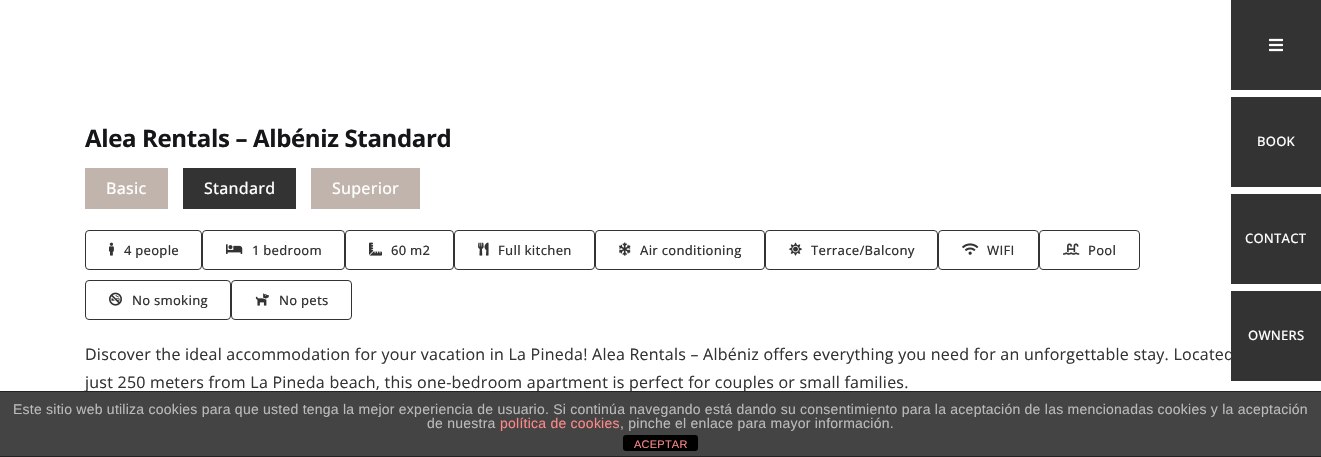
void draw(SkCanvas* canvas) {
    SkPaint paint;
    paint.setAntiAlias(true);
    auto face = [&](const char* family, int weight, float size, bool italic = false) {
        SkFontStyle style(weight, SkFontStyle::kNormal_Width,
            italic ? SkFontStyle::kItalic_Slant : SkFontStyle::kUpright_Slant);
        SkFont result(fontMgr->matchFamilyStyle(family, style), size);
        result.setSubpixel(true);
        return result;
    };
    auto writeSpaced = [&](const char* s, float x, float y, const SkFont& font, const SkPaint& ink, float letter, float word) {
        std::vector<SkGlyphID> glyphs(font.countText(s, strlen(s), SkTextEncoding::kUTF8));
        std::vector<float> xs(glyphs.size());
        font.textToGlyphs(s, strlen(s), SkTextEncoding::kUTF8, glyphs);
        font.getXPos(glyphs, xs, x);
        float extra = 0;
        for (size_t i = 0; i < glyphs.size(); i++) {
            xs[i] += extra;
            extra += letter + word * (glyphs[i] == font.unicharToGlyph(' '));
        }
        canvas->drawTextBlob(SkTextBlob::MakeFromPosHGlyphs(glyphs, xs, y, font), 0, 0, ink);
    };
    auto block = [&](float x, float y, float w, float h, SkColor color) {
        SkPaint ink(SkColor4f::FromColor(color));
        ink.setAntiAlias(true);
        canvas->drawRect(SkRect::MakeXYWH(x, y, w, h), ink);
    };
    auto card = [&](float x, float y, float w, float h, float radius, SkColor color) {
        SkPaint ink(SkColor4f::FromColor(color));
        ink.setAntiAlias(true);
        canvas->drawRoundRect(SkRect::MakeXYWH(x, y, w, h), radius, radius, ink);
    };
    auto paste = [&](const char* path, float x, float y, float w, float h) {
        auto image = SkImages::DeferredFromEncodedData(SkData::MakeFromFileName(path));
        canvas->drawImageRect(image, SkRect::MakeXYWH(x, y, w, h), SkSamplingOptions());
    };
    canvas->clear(SK_ColorWHITE);
    auto kFont1 = face("Open Sans", 700, 24);
    paint.setColor(SkColorSetRGB(20, 22, 23));
    writeSpaced("Alea Rentals – Albéniz Standard", 85, 147, kFont1, paint, -0.35f, 0);
    block(85, 168, 83, 41, SkColorSetRGB(192, 180, 172));
    auto kFont2 = face("Open Sans", 500, 16);
    paint.setColor(SK_ColorWHITE);
    writeSpaced("Basic", 106, 194, kFont2, paint, 0.24f, 0);
    block(183, 168, 113, 41, SkColorSetRGB(51, 51, 51));
    writeSpaced("Standard", 204, 194, kFont2, paint, 0.24f, 0);
    block(311, 168, 109, 41, SkColorSetRGB(192, 180, 172));
    writeSpaced("Superior", 332, 194, kFont2, paint, 0.24f, 0);
    paint.setStyle(SkPaint::kStroke_Style);
    paint.setStrokeWidth(1);
    paint.setColor(SkColorSetRGB(51, 51, 51));
    canvas->drawRoundRect(SkRect::MakeXYWH(85.5f, 230.5f, 116, 39), 3.5f, 3.5f, paint);
    paste("pic1.png", 109, 242, 5, 14);
    auto kFont3 = face("Open Sans", 500, 13);
    paint.setStyle(SkPaint::kFill_Style);
    writeSpaced("4 people", 124, 255, kFont3, paint, 0.25f, 0);
    paint.setStyle(SkPaint::kStroke_Style);
    canvas->drawRoundRect(SkRect::MakeXYWH(202.5f, 230.5f, 142, 39), 3.5f, 3.5f, paint);
    paste("pic2.png", 226, 244, 17, 10);
    paint.setStyle(SkPaint::kFill_Style);
    writeSpaced("1 bedroom", 252, 255, kFont3, paint, 0.25f, 0);
    paint.setStyle(SkPaint::kStroke_Style);
    canvas->drawRoundRect(SkRect::MakeXYWH(345.5f, 230.5f, 108, 39), 3.5f, 3.5f, paint);
    paste("pic3.png", 369, 242, 13, 14);
    paint.setStyle(SkPaint::kFill_Style);
    writeSpaced("60 m2", 391, 255, kFont3, paint, 0.25f, 0);
    paint.setStyle(SkPaint::kStroke_Style);
    canvas->drawRoundRect(SkRect::MakeXYWH(454.5f, 230.5f, 140, 39), 3.5f, 3.5f, paint);
    paste("pic4.png", 478, 242, 11, 14);
    paint.setStyle(SkPaint::kFill_Style);
    writeSpaced("Full kitchen", 498, 255, kFont3, paint, 0.25f, 0);
    paint.setStyle(SkPaint::kStroke_Style);
    canvas->drawRoundRect(SkRect::MakeXYWH(595.5f, 230.5f, 169, 39), 3.5f, 3.5f, paint);
    paste("pic5.png", 619, 242, 12, 14);
    paint.setStyle(SkPaint::kFill_Style);
    writeSpaced("Air conditioning", 640, 255, kFont3, paint, 0.25f, 0);
    paint.setStyle(SkPaint::kStroke_Style);
    canvas->drawRoundRect(SkRect::MakeXYWH(765.5f, 230.5f, 172, 39), 3.5f, 3.5f, paint);
    paste("pic6.png", 789, 242, 13, 14);
    paint.setStyle(SkPaint::kFill_Style);
    writeSpaced("Terrace/Balcony", 811, 255, kFont3, paint, 0.25f, 0);
    paint.setStyle(SkPaint::kStroke_Style);
    canvas->drawRoundRect(SkRect::MakeXYWH(938.5f, 230.5f, 100, 39), 3.5f, 3.5f, paint);
    paste("pic7.png", 962, 243, 17, 12);
    paint.setStyle(SkPaint::kFill_Style);
    writeSpaced("WIFI", 987, 255, kFont3, paint, 0.25f, 0);
    paint.setStyle(SkPaint::kStroke_Style);
    canvas->drawRoundRect(SkRect::MakeXYWH(1039.5f, 230.5f, 100, 39), 3.5f, 3.5f, paint);
    paste("pic8.png", 1063, 243, 17, 12);
    paint.setStyle(SkPaint::kFill_Style);
    writeSpaced("Pool", 1088, 255, kFont3, paint, 0.25f, 0);
    paint.setStyle(SkPaint::kStroke_Style);
    canvas->drawRoundRect(SkRect::MakeXYWH(85.5f, 280.5f, 145, 39), 3.5f, 3.5f, paint);
    paste("pic9.png", 109, 292, 13, 14);
    paint.setStyle(SkPaint::kFill_Style);
    writeSpaced("No smoking", 132, 305, kFont3, paint, 0.25f, 0);
    paint.setStyle(SkPaint::kStroke_Style);
    canvas->drawRoundRect(SkRect::MakeXYWH(231.5f, 280.5f, 120, 39), 3.5f, 3.5f, paint);
    paste("pic10.png", 255, 293, 14, 13);
    paint.setStyle(SkPaint::kFill_Style);
    writeSpaced("No pets", 279, 305, kFont3, paint, 0.25f, 0);
    auto kFont4 = face("Open Sans", 400, 16);
    writeSpaced("Discover the ideal accommodation for your vacation in La Pineda! Alea Rentals – Albéniz offers everything you need for an unforgettable stay. Located", 85, 360, kFont4, paint, 0.24f, 0);
    writeSpaced("just 250 meters from La Pineda beach, this one-bedroom apartment is perfect for couples or small families.", 85, 388, kFont4, paint, 0.24f, 0);
    block(1231, 0, 90, 90, SkColorSetRGB(51, 51, 51));
    paste("pic11.png", 1269, 38, 14, 14);
    block(1231, 97, 90, 90, SkColorSetRGB(51, 51, 51));
    paint.setColor(SK_ColorWHITE);
    writeSpaced("BOOK", 1257, 146, kFont3, paint, 0.24f, 0);
    block(1231, 194, 90, 90, SkColorSetRGB(51, 51, 51));
    writeSpaced("CONTACT", 1245, 243, kFont3, paint, 0.24f, 0);
    block(1231, 291, 90, 90, SkColorSetRGB(51, 51, 51));
    writeSpaced("OWNERS", 1248, 340, kFont3, paint, 0.24f, 0);
    block(0, 392, 1321, 64, SkColorSetRGB(68, 68, 68));
    block(0, 391, 1321, 1, SkColorSetRGB(34, 34, 34));
    block(0, 456, 1321, 1, SkColorSetRGB(34, 34, 34));
    auto kFont5 = face("Liberation Sans", 400, 14);
    paint.setColor(SkColorSetRGB(187, 187, 187));
    writeSpaced("Este sitio web utiliza cookies para que usted tenga la mejor experiencia de usuario. Si continúa navegando está dando su consentimiento para la aceptación de las mencionadas cookies y la aceptación", 13, 414, kFont5, paint, 0.24f, 0);
    writeSpaced("de nuestra", 427, 428, kFont5, paint, 0.24f, 0);
    paint.setColor(SkColorSetRGB(255, 136, 136));
    writeSpaced("política de cookies", 500, 428, kFont5, paint, 0.24f, 0);
    paint.setColor(SkColorSetRGB(187, 187, 187));
    writeSpaced(", pinche el enlace para mayor información.", 620, 428, kFont5, paint, 0.24f, 0);
    card(623, 435, 75, 16, 3, SK_ColorBLACK);
    auto kFont6 = face("Liberation Sans", 400, 11);
    paint.setColor(SkColorSetRGB(255, 136, 136));
    writeSpaced("ACEPTAR", 634, 448, kFont6, paint, 0.24f, 0);
}
